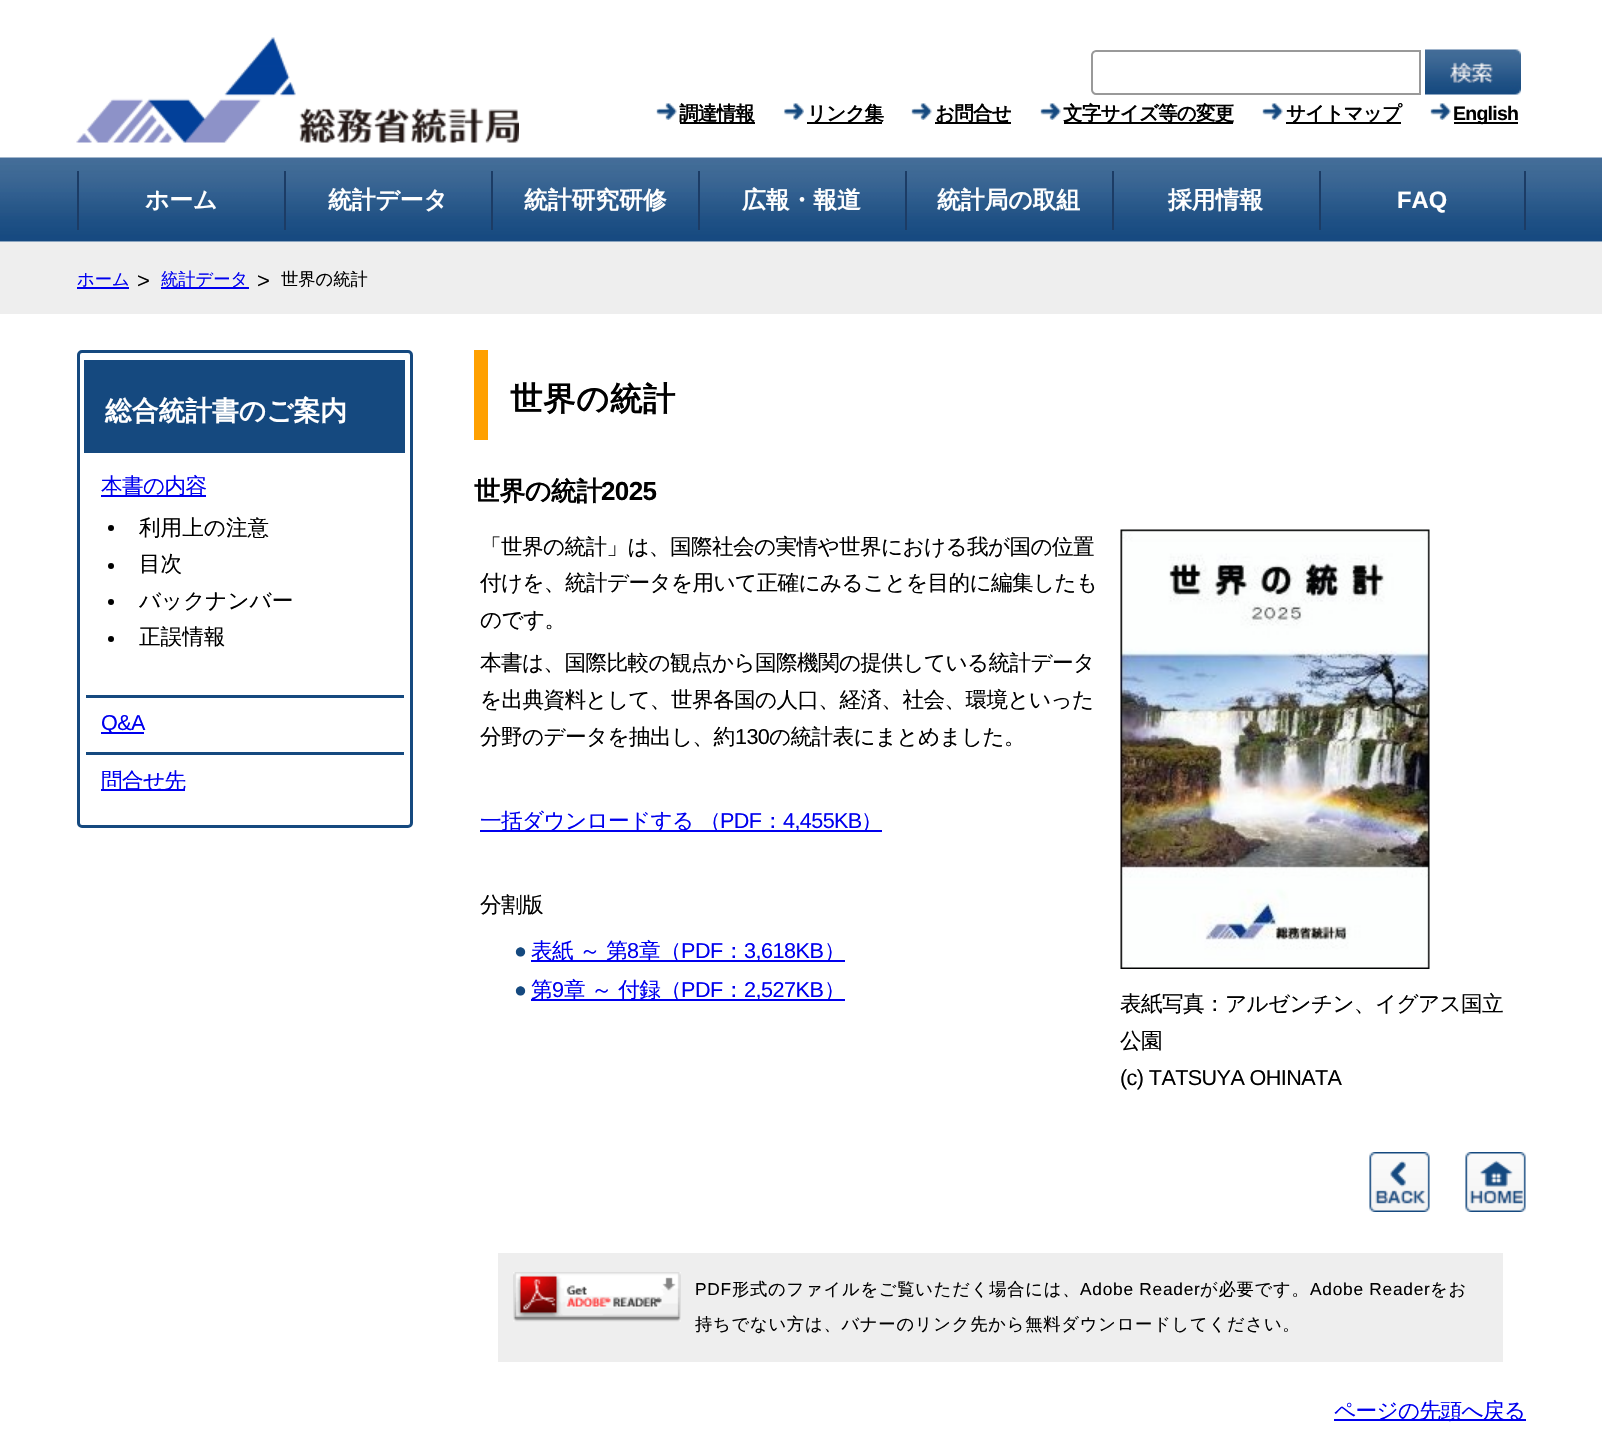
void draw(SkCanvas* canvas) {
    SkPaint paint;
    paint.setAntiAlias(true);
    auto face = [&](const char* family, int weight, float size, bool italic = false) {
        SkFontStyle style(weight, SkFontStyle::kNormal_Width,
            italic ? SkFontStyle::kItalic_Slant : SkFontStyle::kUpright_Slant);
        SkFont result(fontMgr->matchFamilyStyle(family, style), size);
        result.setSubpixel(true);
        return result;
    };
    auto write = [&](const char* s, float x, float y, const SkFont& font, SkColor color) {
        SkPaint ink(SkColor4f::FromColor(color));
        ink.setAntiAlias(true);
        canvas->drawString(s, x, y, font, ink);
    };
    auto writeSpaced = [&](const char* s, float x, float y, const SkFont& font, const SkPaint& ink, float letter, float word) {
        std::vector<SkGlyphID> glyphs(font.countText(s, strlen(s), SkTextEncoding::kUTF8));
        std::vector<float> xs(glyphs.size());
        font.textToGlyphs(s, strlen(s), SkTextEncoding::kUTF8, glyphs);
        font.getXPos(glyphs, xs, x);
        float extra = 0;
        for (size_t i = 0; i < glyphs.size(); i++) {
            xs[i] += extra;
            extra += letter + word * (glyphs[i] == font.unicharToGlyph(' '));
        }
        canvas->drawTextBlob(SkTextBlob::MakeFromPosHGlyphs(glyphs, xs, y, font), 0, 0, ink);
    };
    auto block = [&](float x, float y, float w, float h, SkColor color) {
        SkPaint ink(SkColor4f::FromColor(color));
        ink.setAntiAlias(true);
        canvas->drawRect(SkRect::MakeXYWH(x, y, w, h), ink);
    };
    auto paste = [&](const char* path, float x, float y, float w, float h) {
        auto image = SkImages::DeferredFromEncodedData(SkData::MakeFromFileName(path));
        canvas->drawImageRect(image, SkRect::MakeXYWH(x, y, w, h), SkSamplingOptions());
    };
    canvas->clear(SK_ColorWHITE);
    paste("pic1.png", 76, 37, 443, 106);
    paint.setStyle(SkPaint::kStroke_Style);
    paint.setStrokeWidth(2);
    paint.setColor(SkColorSetRGB(153, 153, 153));
    canvas->drawPath(SkPathBuilder().moveTo(1096, 51).lineTo(1420, 51).lineTo(1420, 94).lineTo(1096, 94).cubicTo(1094, 94, 1092, 92, 1092, 90).lineTo(1092, 55).cubicTo(1092, 53, 1094, 51, 1096, 51).close().detach(), paint);
    paste("pic2.png", 1425, 49, 96, 46);
    paste("pic3.png", 656, 103, 21, 17);
    block(680, 122, 75, 2, SK_ColorBLACK);
    auto kFont1 = face("WenQuanYi Zen Hei", 700, 19.5f);
    paint.setStyle(SkPaint::kFill_Style);
    paint.setColor(SK_ColorBLACK);
    writeSpaced("調達情報", 679, 120, kFont1, paint, -0.75f, 0);
    paste("pic4.png", 783, 103, 21, 17);
    block(807, 122, 75, 2, SK_ColorBLACK);
    writeSpaced("リンク集", 807, 120, kFont1, paint, -0.75f, 0);
    paste("pic5.png", 911, 103, 21, 17);
    block(935, 122, 76, 2, SK_ColorBLACK);
    writeSpaced("お問合せ", 935, 120, kFont1, paint, -0.75f, 0);
    paste("pic5.png", 1040, 103, 21, 17);
    block(1064, 122, 169, 2, SK_ColorBLACK);
    writeSpaced("文字サイズ等の変更", 1063, 120, kFont1, paint, -0.75f, 0);
    paste("pic5.png", 1262, 103, 21, 17);
    block(1286, 122, 115, 2, SK_ColorBLACK);
    writeSpaced("サイトマップ", 1286, 120, kFont1, paint, -0.75f, 0);
    paste("pic3.png", 1430, 103, 21, 17);
    block(1454, 122, 64, 2, SK_ColorBLACK);
    auto kFont2 = face("Liberation Sans", 700, 19.5f);
    writeSpaced("English", 1453, 120, kFont2, paint, -0.75f, 0);
    paste("pic6.png", 0, 157, 1602, 85);
    block(77, 171, 2, 59, SkColorSetRGB(28, 60, 101));
    auto kFont3 = face("WenQuanYi Zen Hei", 700, 23.75f);
    write("ホーム", 145, 208, kFont3, SK_ColorWHITE);
    block(284, 171, 2, 59, SkColorSetRGB(28, 60, 101));
    write("統計データ", 328, 208, kFont3, SK_ColorWHITE);
    block(491, 171, 2, 59, SkColorSetRGB(28, 60, 101));
    write("統計研究研修", 524, 208, kFont3, SK_ColorWHITE);
    block(698, 171, 2, 59, SkColorSetRGB(28, 60, 101));
    write("広報・報道", 742, 208, kFont3, SK_ColorWHITE);
    block(905, 171, 2, 59, SkColorSetRGB(28, 60, 101));
    write("統計局の取組", 937, 208, kFont3, SK_ColorWHITE);
    block(1112, 171, 2, 59, SkColorSetRGB(28, 60, 101));
    write("採用情報", 1168, 208, kFont3, SK_ColorWHITE);
    block(1524, 171, 2, 59, SkColorSetRGB(28, 60, 101));
    block(1319, 171, 2, 59, SkColorSetRGB(28, 60, 101));
    auto kFont4 = face("Liberation Sans", 700, 23.75f);
    write("FAQ", 1397, 208, kFont4, SK_ColorWHITE);
    block(0, 242, 1602, 72, SkColorSetRGB(238, 238, 238));
    auto kFont5 = face("WenQuanYi Zen Hei", 500, 17.3f);
    write("ホーム", 77, 285, kFont5, SkColorSetRGB(0, 0, 238));
    block(77, 287, 52, 2, SkColorSetRGB(0, 0, 238));
    auto kFont6 = face("Liberation Sans", 400, 22);
    write(">", 137, 288, kFont6, SK_ColorBLACK);
    block(161, 287, 88, 2, SkColorSetRGB(0, 0, 238));
    write("統計データ", 161, 285, kFont5, SkColorSetRGB(0, 0, 238));
    write(">", 257, 288, kFont6, SK_ColorBLACK);
    write("世界の統計", 281, 285, kFont5, SK_ColorBLACK);
    paint.setStyle(SkPaint::kStroke_Style);
    paint.setStrokeWidth(3);
    paint.setColor(SkColorSetRGB(21, 73, 127));
    canvas->drawRoundRect(SkRect::MakeXYWH(78.5f, 351.5f, 333, 475), 3.5f, 3.5f, paint);
    block(84, 360, 321, 93, SkColorSetRGB(21, 73, 127));
    auto kFont7 = face("WenQuanYi Zen Hei", 700, 26.75f);
    write("総合統計書のご案内", 105, 420, kFont7, SK_ColorWHITE);
    block(101, 495, 105, 2, SkColorSetRGB(0, 0, 238));
    auto kFont8 = face("WenQuanYi Zen Hei", 500, 21.6f);
    paint.setStyle(SkPaint::kFill_Style);
    paint.setColor(SkColorSetRGB(0, 0, 238));
    writeSpaced("本書の内容", 101, 493, kFont8, paint, -0.6f, 0);
    paint.setColor(SK_ColorBLACK);
    canvas->drawCircle(111, 528, 3, paint);
    write("利用上の注意", 139, 535, kFont8, SK_ColorBLACK);
    canvas->drawCircle(111, 566, 3, paint);
    write("目次", 139, 571, kFont8, SK_ColorBLACK);
    canvas->drawCircle(111, 602, 3, paint);
    write("バックナンバー", 139, 608, kFont8, SK_ColorBLACK);
    canvas->drawCircle(111, 639, 3, paint);
    write("正誤情報", 139, 644, kFont8, SK_ColorBLACK);
    block(86, 695, 318, 3, SkColorSetRGB(21, 73, 127));
    block(101, 732, 43, 2, SkColorSetRGB(0, 0, 238));
    auto kFont9 = face("Liberation Sans", 400, 21.6f);
    paint.setColor(SkColorSetRGB(0, 0, 238));
    writeSpaced("Q&A", 101, 730, kFont9, paint, -0.6f, 0);
    block(86, 752, 318, 3, SkColorSetRGB(21, 73, 127));
    block(101, 789, 84, 2, SkColorSetRGB(0, 0, 238));
    writeSpaced("問合せ先", 101, 788, kFont8, paint, -0.6f, 0);
    block(474, 350, 14, 90, SkColorSetRGB(255, 160, 0));
    auto kFont10 = face("WenQuanYi Zen Hei", 700, 32.5f);
    paint.setColor(SK_ColorBLACK);
    writeSpaced("世界の統計", 510, 410, kFont10, paint, 0.5f, 0);
    auto kFont11 = face("WenQuanYi Zen Hei", 700, 26);
    writeSpaced("世界の統計", 474, 500, kFont11, paint, -0.6f, 0);
    auto kFont12 = face("Liberation Sans", 700, 26);
    writeSpaced("2025", 601, 500, kFont12, paint, -0.6f, 0);
    writeSpaced("「世界の統計」は、国際社会の実情や世界における我が国の位置", 480, 554, kFont8, paint, -0.6f, 0);
    writeSpaced("付けを、統計データを用いて正確にみることを目的に編集したも", 480, 590, kFont8, paint, -0.6f, 0);
    writeSpaced("のです。", 480, 627, kFont8, paint, -0.6f, 0);
    writeSpaced("本書は、国際比較の観点から国際機関の提供している統計データ", 480, 670, kFont8, paint, -0.6f, 0);
    writeSpaced("を出典資料として、世界各国の人口、経済、社会、環境といった", 480, 707, kFont8, paint, -0.6f, 0);
    writeSpaced("分野のデータを抽出し、約", 480, 744, kFont8, paint, -0.6f, 0);
    writeSpaced("130", 735, 744, kFont9, paint, -0.6f, 0);
    writeSpaced("の統計表にまとめました。", 769, 744, kFont8, paint, -0.6f, 0);
    block(480, 830, 402, 2, SkColorSetRGB(0, 0, 238));
    paint.setColor(SkColorSetRGB(0, 0, 238));
    writeSpaced("一括ダウンロードする （", 480, 828, kFont8, paint, -0.6f, 0);
    writeSpaced("PDF", 720, 828, kFont9, paint, -0.6f, 0);
    writeSpaced("：", 762, 828, kFont8, paint, -0.6f, 0);
    writeSpaced("4,455KB", 783, 828, kFont9, paint, -0.6f, 0);
    writeSpaced("）", 861, 828, kFont8, paint, -0.6f, 0);
    paint.setColor(SK_ColorBLACK);
    writeSpaced("分割版", 480, 912, kFont8, paint, -0.6f, 0);
    paint.setColor(SkColorSetRGB(21, 73, 127));
    writeSpaced("●", 514, 958, kFont9, paint, -0.5f, 0);
    block(531, 960, 314, 2, SkColorSetRGB(0, 0, 238));
    paint.setColor(SkColorSetRGB(0, 0, 238));
    writeSpaced("表紙 ～ 第", 531, 958, kFont8, paint, -0.5f, 0);
    writeSpaced("8", 627, 958, kFont9, paint, -0.5f, 0);
    writeSpaced("章（", 639, 958, kFont8, paint, -0.5f, 0);
    writeSpaced("PDF", 681, 958, kFont9, paint, -0.5f, 0);
    writeSpaced("：", 723, 958, kFont8, paint, -0.5f, 0);
    writeSpaced("3,618KB", 744, 958, kFont9, paint, -0.5f, 0);
    writeSpaced("）", 824, 958, kFont8, paint, -0.5f, 0);
    paint.setColor(SkColorSetRGB(21, 73, 127));
    writeSpaced("●", 514, 997, kFont9, paint, -0.5f, 0);
    block(531, 999, 314, 2, SkColorSetRGB(0, 0, 238));
    paint.setColor(SkColorSetRGB(0, 0, 238));
    writeSpaced("第", 531, 997, kFont8, paint, -0.5f, 0);
    writeSpaced("9", 552, 997, kFont9, paint, -0.5f, 0);
    writeSpaced("章 ～ 付録（", 564, 997, kFont8, paint, -0.5f, 0);
    writeSpaced("PDF", 681, 997, kFont9, paint, -0.5f, 0);
    writeSpaced("：", 723, 997, kFont8, paint, -0.5f, 0);
    writeSpaced("2,527KB", 744, 997, kFont9, paint, -0.5f, 0);
    writeSpaced("）", 824, 997, kFont8, paint, -0.5f, 0);
    paste("pic7.png", 1120, 529, 310, 440);
    paint.setColor(SK_ColorBLACK);
    writeSpaced("表紙写真：アルゼンチン、イグアス国立", 1120, 1011, kFont8, paint, -0.6f, 0);
    writeSpaced("公園", 1120, 1048, kFont8, paint, -0.6f, 0);
    writeSpaced("(c) TATSUYA OHINATA", 1120, 1085, kFont9, paint, -0.6f, 0);
    paste("pic8.png", 1369, 1152, 61, 60);
    paste("pic9.png", 1465, 1152, 61, 60);
    block(498, 1253, 1005, 109, SkColorSetRGB(238, 238, 238));
    paste("pic10.png", 513, 1272, 168, 50);
    auto kFont13 = face("Liberation Sans", 400, 17.3f);
    writeSpaced("PDF", 695, 1295, kFont13, paint, 0.75f, 0);
    writeSpaced("形式のファイルをご覧いただく場合には、", 732, 1295, kFont5, paint, 0.75f, 0);
    writeSpaced("Adobe Reader", 1080, 1295, kFont13, paint, 0.75f, 0);
    writeSpaced("が必要です。", 1200, 1295, kFont5, paint, 0.75f, 0);
    writeSpaced("Adobe Reader", 1310, 1295, kFont13, paint, 0.75f, 0);
    writeSpaced("をお", 1430, 1295, kFont5, paint, 0.75f, 0);
    writeSpaced("持ちでない方は、バナーのリンク先から無料ダウンロードしてください。", 695, 1330, kFont5, paint, 0.75f, 0);
    block(1334, 1419, 192, 2, SkColorSetRGB(0, 0, 238));
    paint.setColor(SkColorSetRGB(0, 0, 238));
    writeSpaced("ページの先頭へ戻る", 1334, 1418, kFont8, paint, -0.6f, 0);
}
